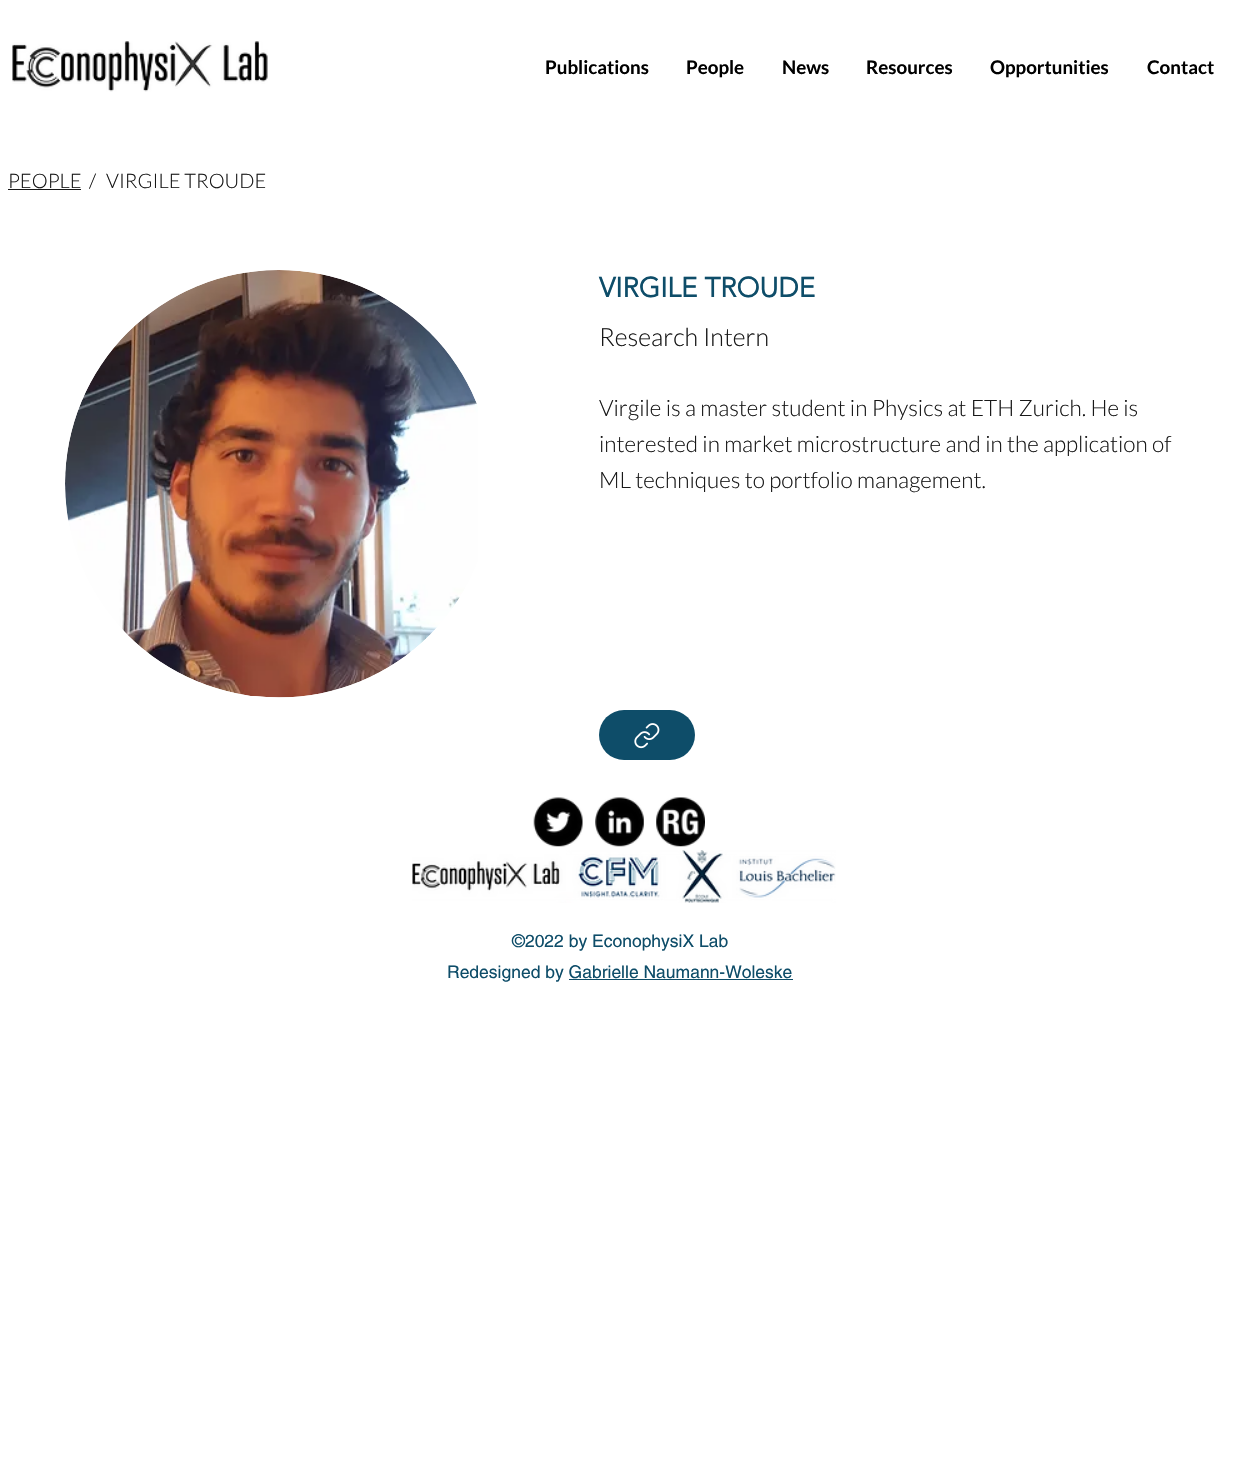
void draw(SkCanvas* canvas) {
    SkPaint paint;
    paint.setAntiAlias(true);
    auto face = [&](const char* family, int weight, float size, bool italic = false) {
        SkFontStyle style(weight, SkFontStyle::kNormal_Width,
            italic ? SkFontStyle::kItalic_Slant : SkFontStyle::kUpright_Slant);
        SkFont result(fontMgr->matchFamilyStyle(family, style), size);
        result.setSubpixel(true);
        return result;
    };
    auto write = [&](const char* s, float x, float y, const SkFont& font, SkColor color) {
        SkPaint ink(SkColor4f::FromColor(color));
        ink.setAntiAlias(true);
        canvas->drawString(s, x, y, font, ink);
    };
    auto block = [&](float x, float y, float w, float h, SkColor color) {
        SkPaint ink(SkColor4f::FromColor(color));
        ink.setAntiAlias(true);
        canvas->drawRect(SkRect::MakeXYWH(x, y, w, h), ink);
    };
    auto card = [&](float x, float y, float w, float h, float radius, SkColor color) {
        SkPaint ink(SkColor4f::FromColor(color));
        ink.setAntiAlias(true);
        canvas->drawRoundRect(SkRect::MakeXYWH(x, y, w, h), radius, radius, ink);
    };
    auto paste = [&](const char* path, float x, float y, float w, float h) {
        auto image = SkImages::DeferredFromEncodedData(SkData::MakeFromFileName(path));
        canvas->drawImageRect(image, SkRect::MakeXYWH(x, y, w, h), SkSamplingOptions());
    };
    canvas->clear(SK_ColorWHITE);
    paste("pic1.png", 12, 41, 256, 51);
    auto kFont1 = face("Lato", 700, 18.75f);
    write("Publications", 545, 74, kFont1, SK_ColorBLACK);
    write("People", 686, 74, kFont1, SK_ColorBLACK);
    write("News", 782, 74, kFont1, SK_ColorBLACK);
    write("Resources", 866, 74, kFont1, SK_ColorBLACK);
    write("Opportunities", 990, 74, kFont1, SK_ColorBLACK);
    write("Contact", 1147, 74, kFont1, SK_ColorBLACK);
    auto kFont2 = face("Lato", 300, 20);
    write("PEOPLE", 8, 188, kFont2, SkColorSetRGB(24, 24, 24));
    block(8, 189, 73, 1, SkColorSetRGB(24, 24, 24));
    write("/", 89, 188, kFont2, SkColorSetRGB(24, 24, 24));
    write("VIRGILE TROUDE", 106, 188, kFont2, SkColorSetRGB(24, 24, 24));
    paste("pic2.png", 65, 270, 413, 428);
    auto kFont3 = face("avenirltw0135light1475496", 700, 27.5f);
    write("VIRGILE TROUDE", 599, 297, kFont3, SkColorSetRGB(14, 77, 105));
    auto kFont4 = face("Lato", 300, 25);
    write("Research Intern", 599, 346, kFont4, SkColorSetRGB(24, 24, 24));
    auto kFont5 = face("Lato", 300, 22.5f);
    write("Virgile is a master student in Physics at ETH Zurich. He is", 599, 416, kFont5, SkColorSetRGB(24, 24, 24));
    write("interested in market microstructure and in the application of", 599, 452, kFont5, SkColorSetRGB(24, 24, 24));
    write("ML techniques to portfolio management.", 599, 488, kFont5, SkColorSetRGB(24, 24, 24));
    card(599, 710, 96, 50, 25, SkColorSetRGB(14, 77, 105));
    paste("pic3.png", 634, 723, 26, 26);
    paste("pic4.png", 533, 797, 50, 50);
    paste("pic5.png", 595, 797, 49, 50);
    paste("pic6.png", 656, 797, 49, 50);
    paste("pic7.png", 412, 850, 424, 53);
    auto kFont6 = face("helvetica", 400, 17.5f);
    write("©2022 by EconophysiX Lab", 512, 947, kFont6, SkColorSetRGB(14, 77, 105));
    write("Redesigned by Gabrielle Naumann-Woleske", 447, 978, kFont6, SkColorSetRGB(14, 77, 105));
    block(569, 979, 224, 1, SkColorSetRGB(14, 76, 103));
}
